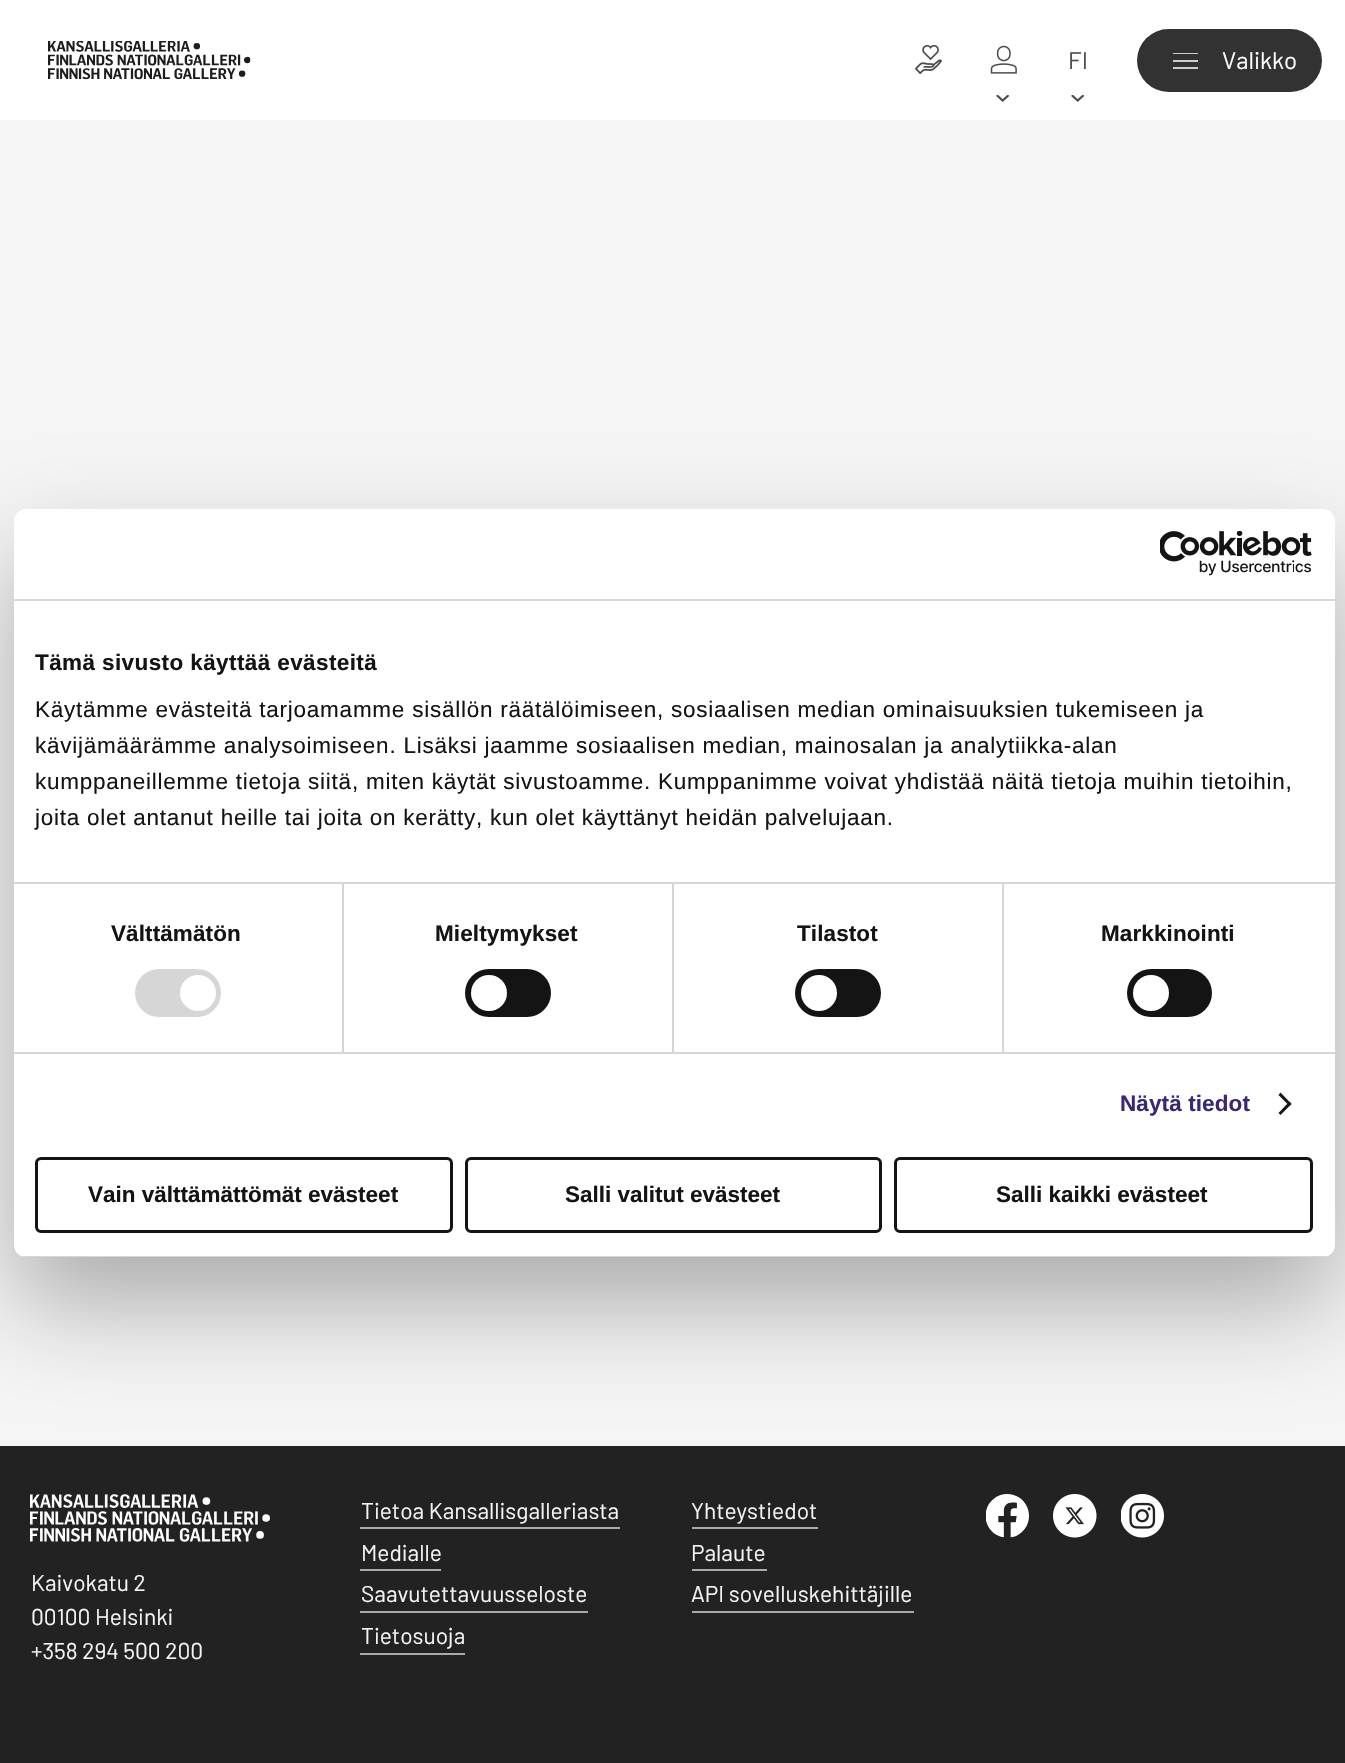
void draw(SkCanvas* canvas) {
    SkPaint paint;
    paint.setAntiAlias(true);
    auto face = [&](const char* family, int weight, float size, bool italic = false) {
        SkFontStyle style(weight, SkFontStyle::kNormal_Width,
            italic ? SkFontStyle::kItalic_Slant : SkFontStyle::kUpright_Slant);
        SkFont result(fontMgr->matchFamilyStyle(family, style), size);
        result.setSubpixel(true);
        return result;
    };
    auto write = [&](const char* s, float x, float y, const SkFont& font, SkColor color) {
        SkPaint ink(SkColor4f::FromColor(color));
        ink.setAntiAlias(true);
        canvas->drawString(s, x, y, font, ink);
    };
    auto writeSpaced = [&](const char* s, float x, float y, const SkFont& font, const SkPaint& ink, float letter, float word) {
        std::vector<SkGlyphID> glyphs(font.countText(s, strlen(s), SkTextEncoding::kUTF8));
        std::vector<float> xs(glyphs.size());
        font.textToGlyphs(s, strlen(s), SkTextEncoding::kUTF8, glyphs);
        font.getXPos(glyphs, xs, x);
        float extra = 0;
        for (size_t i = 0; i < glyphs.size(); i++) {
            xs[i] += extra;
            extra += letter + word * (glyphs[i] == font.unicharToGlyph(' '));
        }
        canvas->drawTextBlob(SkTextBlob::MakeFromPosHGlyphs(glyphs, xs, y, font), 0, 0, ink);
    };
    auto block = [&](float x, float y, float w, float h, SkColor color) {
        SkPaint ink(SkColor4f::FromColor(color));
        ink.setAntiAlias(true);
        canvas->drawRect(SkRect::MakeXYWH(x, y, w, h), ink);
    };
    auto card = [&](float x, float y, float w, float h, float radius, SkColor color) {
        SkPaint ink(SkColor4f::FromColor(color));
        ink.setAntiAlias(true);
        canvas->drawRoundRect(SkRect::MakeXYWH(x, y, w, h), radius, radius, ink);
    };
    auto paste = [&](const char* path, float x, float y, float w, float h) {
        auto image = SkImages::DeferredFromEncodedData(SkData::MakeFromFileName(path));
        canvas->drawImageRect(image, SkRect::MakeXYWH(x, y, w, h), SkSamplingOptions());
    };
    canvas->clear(SkColorSetRGB(245, 245, 245));
    block(0, 0, 1345, 120, SK_ColorWHITE);
    paste("pic1.png", 48, 41, 203, 39);
    paste("pic2.png", 915, 45, 27, 29);
    paste("pic3.png", 990, 45, 27, 29);
    paste("pic4.png", 996, 95, 14, 7);
    auto kFont1 = face("Barlow", 400, 24);
    write("FI", 1068, 69, kFont1, SkColorSetRGB(77, 77, 77));
    paste("pic4.png", 1071, 95, 14, 7);
    card(1137, 29, 185, 63, 31.5f, SkColorSetRGB(50, 50, 50));
    block(1173, 53, 25, 1, SkColorSetRGB(204, 204, 204));
    block(1173, 60, 25, 2, SkColorSetRGB(204, 204, 204));
    block(1173, 67, 25, 2, SkColorSetRGB(204, 204, 204));
    write("Valikko", 1222, 69, kFont1, SK_ColorWHITE);
    block(0, 1446, 1345, 317, SkColorSetRGB(34, 34, 34));
    paste("pic5.png", 30, 1494, 240, 48);
    auto kFont2 = face("Barlow", 400, 22.75f);
    write("Kaivokatu 2", 31, 1591, kFont2, SkColorSetRGB(245, 245, 245));
    write("00100 Helsinki", 31, 1625, kFont2, SkColorSetRGB(245, 245, 245));
    write("+358 294 500 200", 31, 1659, kFont2, SkColorSetRGB(245, 245, 245));
    block(360, 1527, 260, 2, SkColorSetRGB(170, 170, 170));
    write("Tietoa Kansallisgalleriasta", 361, 1519, kFont2, SkColorSetRGB(245, 245, 245));
    block(360, 1569, 81, 2, SkColorSetRGB(170, 170, 170));
    write("Medialle", 361, 1561, kFont2, SkColorSetRGB(245, 245, 245));
    block(360, 1611, 228, 2, SkColorSetRGB(170, 170, 170));
    write("Saavutettavuusseloste", 361, 1602, kFont2, SkColorSetRGB(245, 245, 245));
    block(360, 1653, 105, 2, SkColorSetRGB(170, 170, 170));
    write("Tietosuoja", 361, 1644, kFont2, SkColorSetRGB(245, 245, 245));
    block(692, 1527, 126, 2, SkColorSetRGB(170, 170, 170));
    write("Yhteystiedot", 691, 1519, kFont2, SkColorSetRGB(245, 245, 245));
    block(692, 1569, 75, 2, SkColorSetRGB(170, 170, 170));
    write("Palaute", 691, 1561, kFont2, SkColorSetRGB(245, 245, 245));
    block(692, 1611, 222, 2, SkColorSetRGB(170, 170, 170));
    write("API sovelluskehittäjille", 691, 1602, kFont2, SkColorSetRGB(245, 245, 245));
    paste("pic6.png", 986, 1494, 43, 44);
    paste("pic7.png", 1053, 1494, 44, 44);
    paste("pic8.png", 1121, 1494, 43, 44);
    paint.setColor(SkColorSetARGB(77, 0, 0, 0));
    paint.setMaskFilter(SkMaskFilter::MakeBlur(kNormal_SkBlurStyle, 51));
    canvas->drawRoundRect(SkRect::MakeXYWH(14, 557, 1321, 748), 12, 12, paint);
    paint.setMaskFilter(nullptr);
    card(14, 509, 1321, 748, 12, SK_ColorWHITE);
    block(14, 599, 1321, 2, SkColorSetRGB(214, 214, 214));
    paste("pic9.png", 1160, 531, 152, 45);
    block(14, 882, 1321, 2, SkColorSetRGB(214, 214, 214));
    auto kFont3 = face("Liberation Sans", 700, 22.5f);
    paint.setColor(SkColorSetRGB(20, 20, 20));
    writeSpaced("Tämä sivusto käyttää evästeitä", 35, 670, kFont3, paint, 0.4f, 0);
    auto kFont4 = face("Liberation Sans", 400, 22.5f);
    writeSpaced("Käytämme evästeitä tarjoamamme sisällön räätälöimiseen, sosiaalisen median ominaisuuksien tukemiseen ja", 35, 717, kFont4, paint, 0.75f, 0);
    writeSpaced("kävijämäärämme analysoimiseen. Lisäksi jaamme sosiaalisen median, mainosalan ja analytiikka-alan", 35, 753, kFont4, paint, 0.75f, 0);
    writeSpaced("kumppaneillemme tietoja siitä, miten käytät sivustoamme. Kumppanimme voivat yhdistää näitä tietoja muihin tietoihin,", 35, 789, kFont4, paint, 0.75f, 0);
    writeSpaced("joita olet antanut heille tai joita on kerätty, kun olet käyttänyt heidän palvelujaan.", 35, 825, kFont4, paint, 0.75f, 0);
    block(14, 1052, 1321, 2, SkColorSetRGB(214, 214, 214));
    block(342, 884, 2, 168, SkColorSetRGB(214, 214, 214));
    writeSpaced("Välttämätön", 111, 941, kFont3, paint, 0.1f, 0);
    card(135, 969, 86, 48, 24, SkColorSetRGB(214, 214, 214));
    paint.setColor(SK_ColorWHITE);
    canvas->drawCircle(198, 993, 18, paint);
    block(672, 884, 2, 168, SkColorSetRGB(214, 214, 214));
    paint.setColor(SkColorSetRGB(20, 20, 20));
    writeSpaced("Mieltymykset", 435, 941, kFont3, paint, 0.1f, 0);
    card(465, 969, 86, 48, 24, SkColorSetRGB(20, 20, 20));
    paint.setColor(SK_ColorWHITE);
    canvas->drawCircle(489, 993, 18, paint);
    block(1002, 884, 2, 168, SkColorSetRGB(214, 214, 214));
    paint.setColor(SkColorSetRGB(20, 20, 20));
    writeSpaced("Tilastot", 797, 941, kFont3, paint, 0.1f, 0);
    card(795, 969, 86, 48, 24, SkColorSetRGB(20, 20, 20));
    paint.setColor(SK_ColorWHITE);
    canvas->drawCircle(819, 993, 18, paint);
    paint.setColor(SkColorSetRGB(20, 20, 20));
    writeSpaced("Markkinointi", 1101, 941, kFont3, paint, 0.1f, 0);
    card(1127, 969, 85, 48, 24, SkColorSetRGB(20, 20, 20));
    paint.setColor(SK_ColorWHITE);
    canvas->drawCircle(1151, 993, 18, paint);
    paint.setColor(SkColorSetRGB(58, 39, 120));
    writeSpaced("Näytä tiedot", 1120, 1111, kFont3, paint, 0.1f, 0);
    paint.setColor(SkColorSetRGB(20, 20, 20));
    canvas->drawPath(SkPathBuilder().moveTo(1280.5f, 1092.5f).lineTo(1291.5f, 1104).lineTo(1289.5f, 1106).lineTo(1278.5f, 1095).close().detach(), paint);
    canvas->drawPath(SkPathBuilder().moveTo(1289.5f, 1101.5f).lineTo(1291.5f, 1104).lineTo(1280.5f, 1115).lineTo(1278.5f, 1113).close().detach(), paint);
    canvas->save();
    canvas->clipPath(SkPathBuilder().moveTo(26, 509).lineTo(1323, 509).cubicTo(1329.5f, 509, 1335, 514.5f, 1335, 521).lineTo(1335, 1245).cubicTo(1335, 1251.5f, 1329.5f, 1257, 1323, 1257).lineTo(26, 1257).cubicTo(19.5f, 1257, 14, 1251.5f, 14, 1245).lineTo(14, 521).cubicTo(14, 514.5f, 19.5f, 509, 26, 509).close().detach(), true);
    block(14, 1256, 1321, 1, SkColorSetRGB(214, 214, 214));
    canvas->restore();
    paint.setStyle(SkPaint::kStroke_Style);
    paint.setStrokeWidth(3);
    canvas->drawRoundRect(SkRect::MakeXYWH(36.5f, 1158.5f, 415, 73), 4.5f, 4.5f, paint);
    write("Vain välttämättömät evästeet", 88, 1202, kFont3, SkColorSetRGB(20, 20, 20));
    canvas->drawRoundRect(SkRect::MakeXYWH(466.5f, 1158.5f, 414, 73), 4.5f, 4.5f, paint);
    write("Salli valitut evästeet", 565, 1202, kFont3, SkColorSetRGB(20, 20, 20));
    canvas->drawRoundRect(SkRect::MakeXYWH(895.5f, 1158.5f, 416, 73), 4.5f, 4.5f, paint);
    write("Salli kaikki evästeet", 996, 1202, kFont3, SkColorSetRGB(20, 20, 20));
}
